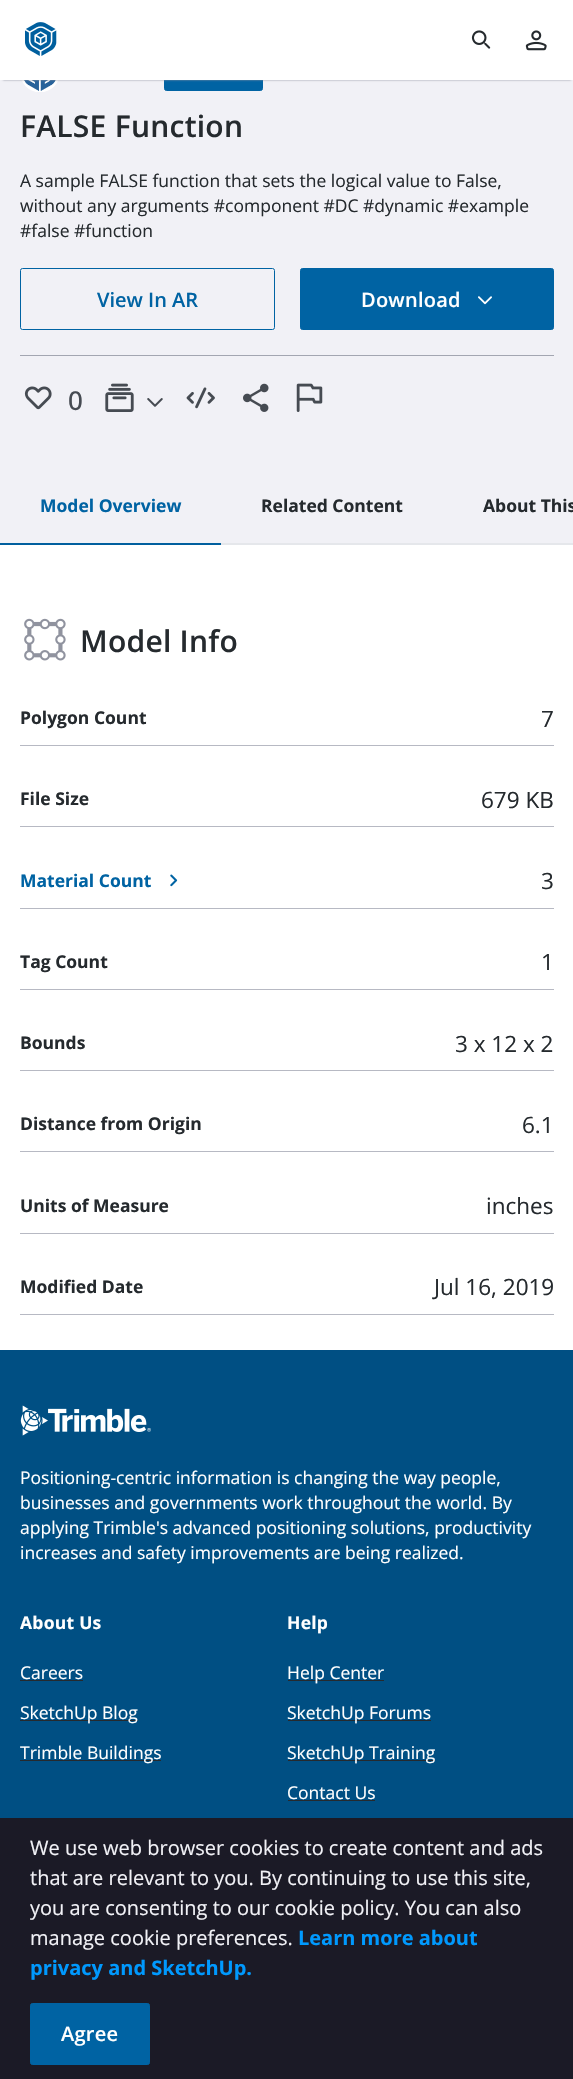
void draw(SkCanvas* canvas) {
    SkPaint paint;
    paint.setAntiAlias(true);
    auto face = [&](const char* family, int weight, float size, bool italic = false) {
        SkFontStyle style(weight, SkFontStyle::kNormal_Width,
            italic ? SkFontStyle::kItalic_Slant : SkFontStyle::kUpright_Slant);
        SkFont result(fontMgr->matchFamilyStyle(family, style), size);
        result.setSubpixel(true);
        return result;
    };
    auto write = [&](const char* s, float x, float y, const SkFont& font, SkColor color) {
        SkPaint ink(SkColor4f::FromColor(color));
        ink.setAntiAlias(true);
        canvas->drawString(s, x, y, font, ink);
    };
    auto writeSpaced = [&](const char* s, float x, float y, const SkFont& font, const SkPaint& ink, float letter, float word) {
        std::vector<SkGlyphID> glyphs(font.countText(s, strlen(s), SkTextEncoding::kUTF8));
        std::vector<float> xs(glyphs.size());
        font.textToGlyphs(s, strlen(s), SkTextEncoding::kUTF8, glyphs);
        font.getXPos(glyphs, xs, x);
        float extra = 0;
        for (size_t i = 0; i < glyphs.size(); i++) {
            xs[i] += extra;
            extra += letter + word * (glyphs[i] == font.unicharToGlyph(' '));
        }
        canvas->drawTextBlob(SkTextBlob::MakeFromPosHGlyphs(glyphs, xs, y, font), 0, 0, ink);
    };
    auto block = [&](float x, float y, float w, float h, SkColor color) {
        SkPaint ink(SkColor4f::FromColor(color));
        ink.setAntiAlias(true);
        canvas->drawRect(SkRect::MakeXYWH(x, y, w, h), ink);
    };
    auto paste = [&](const char* path, float x, float y, float w, float h) {
        auto image = SkImages::DeferredFromEncodedData(SkData::MakeFromFileName(path));
        canvas->drawImageRect(image, SkRect::MakeXYWH(x, y, w, h), SkSamplingOptions());
    };
    canvas->clear(SkColorSetRGB(241, 241, 246));
    paste("pic4.png", 21, 80, 38, 12);
    paint.setColor(SkColorSetRGB(0, 99, 163));
    canvas->drawRoundRect(SkRect::MakeXYWH(164.5f, 54.5f, 98, 36), 2, 2, paint);
    paint.setStyle(SkPaint::kStroke_Style);
    paint.setStrokeWidth(1);
    canvas->drawRoundRect(SkRect::MakeXYWH(164.5f, 54.5f, 98, 36), 2, 2, paint);
    paint.setStyle(SkPaint::kFill_Style);
    paint.setColor(SkColorSetRGB(144, 147, 159));
    paint.setMaskFilter(SkMaskFilter::MakeBlur(kNormal_SkBlurStyle, 1));
    canvas->drawRect(SkRect::MakeXYWH(3, 5, 568, 75), paint);
    paint.setMaskFilter(nullptr);
    block(0, 0, 573, 80, SK_ColorWHITE);
    paste("pic1.png", 25, 22, 32, 34);
    paste("pic2.png", 471, 30, 20, 19);
    paste("pic3.png", 525, 30, 22, 21);
    auto kFont1 = face("Open Sans", 600, 30);
    paint.setColor(SkColorSetRGB(37, 42, 46));
    writeSpaced("FALSE Function", 20, 137, kFont1, paint, 0.25f, 0);
    auto kFont2 = face("Open Sans", 400, 17.5f);
    write("A sample FALSE function that sets the logical value to False,", 20, 187, kFont2, SkColorSetRGB(37, 42, 46));
    write("without any arguments #component #DC #dynamic #example", 20, 212, kFont2, SkColorSetRGB(37, 42, 46));
    write("#false #function", 20, 237, kFont2, SkColorSetRGB(37, 42, 46));
    paint.setStyle(SkPaint::kStroke_Style);
    paint.setColor(SkColorSetRGB(0, 99, 163));
    canvas->drawRoundRect(SkRect::MakeXYWH(20.5f, 268.5f, 254, 61), 2, 2, paint);
    auto kFont3 = face("Open Sans", 600, 20);
    write("View In AR", 97, 307, kFont3, SkColorSetRGB(0, 99, 163));
    paint.setStyle(SkPaint::kFill_Style);
    canvas->drawRoundRect(SkRect::MakeXYWH(300.5f, 268.5f, 253, 61), 2, 2, paint);
    paint.setStyle(SkPaint::kStroke_Style);
    canvas->drawRoundRect(SkRect::MakeXYWH(300.5f, 268.5f, 253, 61), 2, 2, paint);
    paint.setStyle(SkPaint::kFill_Style);
    paint.setColor(SK_ColorWHITE);
    writeSpaced("Download", 361, 307, kFont3, paint, 0.25f, 0);
    paste("pic5.png", 478, 296, 14, 9);
    block(20, 355, 534, 1, SkColorSetRGB(163, 166, 177));
    paste("pic6.png", 24, 386, 28, 24);
    auto kFont4 = face("Open Sans", 500, 26);
    write("0", 68, 410, kFont4, SkColorSetRGB(70, 75, 82));
    paste("pic7.png", 105, 383, 29, 29);
    paste("pic8.png", 147, 398, 16, 9);
    paste("pic9.png", 186, 387, 29, 22);
    paste("pic10.png", 243, 383, 26, 29);
    paste("pic11.png", 296, 383, 27, 29);
    block(0, 543, 221, 2, SkColorSetRGB(0, 95, 158));
    auto kFont5 = face("Open Sans", 700, 17.5f);
    write("Model Overview", 40, 512, kFont5, SkColorSetRGB(0, 99, 163));
    block(221, 543, 352, 2, SkColorSetRGB(229, 231, 235));
    write("Related Content", 261, 512, kFont5, SkColorSetRGB(37, 42, 46));
    write("About This", 483, 512, kFont5, SkColorSetRGB(37, 42, 46));
    block(0, 545, 573, 805, SK_ColorWHITE);
    paste("pic12.png", 24, 618, 42, 43);
    paint.setColor(SkColorSetRGB(37, 42, 46));
    writeSpaced("Model Info", 80, 652, kFont1, paint, 0.25f, 0);
    block(20, 745, 534, 1, SkColorSetRGB(183, 185, 195));
    write("Polygon Count", 20, 724, kFont5, SkColorSetRGB(37, 42, 46));
    auto kFont6 = face("Open Sans", 400, 22.5f);
    write("7", 541, 727, kFont6, SkColorSetRGB(37, 42, 46));
    block(20, 826, 534, 1, SkColorSetRGB(183, 185, 195));
    write("File Size", 20, 805, kFont5, SkColorSetRGB(37, 42, 46));
    write("679 KB", 481, 808, kFont6, SkColorSetRGB(37, 42, 46));
    block(20, 908, 534, 1, SkColorSetRGB(183, 185, 195));
    write("Material Count", 20, 887, kFont5, SkColorSetRGB(0, 99, 163));
    paste("pic13.png", 170, 874, 8, 13);
    write("3", 541, 889, kFont6, SkColorSetRGB(37, 42, 46));
    block(20, 989, 534, 1, SkColorSetRGB(183, 185, 195));
    write("Tag Count", 20, 968, kFont5, SkColorSetRGB(37, 42, 46));
    write("1", 541, 970, kFont6, SkColorSetRGB(37, 42, 46));
    block(20, 1070, 534, 1, SkColorSetRGB(183, 185, 195));
    write("Bounds", 20, 1049, kFont5, SkColorSetRGB(37, 42, 46));
    write("3 x 12 x 2", 455, 1052, kFont6, SkColorSetRGB(37, 42, 46));
    block(20, 1151, 534, 1, SkColorSetRGB(183, 185, 195));
    write("Distance from Origin", 20, 1130, kFont5, SkColorSetRGB(37, 42, 46));
    write("6.1", 522, 1133, kFont6, SkColorSetRGB(37, 42, 46));
    block(20, 1233, 534, 1, SkColorSetRGB(183, 185, 195));
    write("Units of Measure", 20, 1212, kFont5, SkColorSetRGB(37, 42, 46));
    write("inches", 486, 1214, kFont6, SkColorSetRGB(37, 42, 46));
    block(20, 1314, 534, 1, SkColorSetRGB(183, 185, 195));
    write("Modified Date", 20, 1293, kFont5, SkColorSetRGB(37, 42, 46));
    write("Jul 16, 2019", 434, 1295, kFont6, SkColorSetRGB(37, 42, 46));
    block(0, 1350, 573, 468, SkColorSetRGB(0, 79, 131));
    paste("pic14.png", 20, 1405, 131, 31);
    write("Positioning-centric information is changing the way people,", 20, 1484, kFont2, SK_ColorWHITE);
    write("businesses and governments work throughout the world. By", 20, 1509, kFont2, SK_ColorWHITE);
    write("applying Trimble's advanced positioning solutions, productivity", 20, 1534, kFont2, SK_ColorWHITE);
    write("increases and safety improvements are being realized.", 20, 1559, kFont2, SK_ColorWHITE);
    paint.setColor(SK_ColorWHITE);
    writeSpaced("About Us", 20, 1629, kFont5, paint, 0.25f, 0);
    write("Careers", 20, 1679, kFont2, SK_ColorWHITE);
    block(20, 1680, 63, 1, SkColorSetRGB(37, 42, 46));
    block(20, 1720, 118, 1, SkColorSetRGB(37, 42, 46));
    write("SketchUp Blog", 20, 1719, kFont2, SK_ColorWHITE);
    block(20, 1760, 141, 1, SkColorSetRGB(37, 42, 46));
    write("Trimble Buildings", 20, 1759, kFont2, SK_ColorWHITE);
    writeSpaced("Help", 287, 1629, kFont5, paint, 0.25f, 0);
    block(288, 1680, 96, 1, SkColorSetRGB(37, 42, 46));
    write("Help Center", 287, 1679, kFont2, SK_ColorWHITE);
    block(288, 1720, 143, 1, SkColorSetRGB(37, 42, 46));
    write("SketchUp Forums", 287, 1719, kFont2, SK_ColorWHITE);
    block(288, 1760, 147, 1, SkColorSetRGB(37, 42, 46));
    write("SketchUp Training", 287, 1759, kFont2, SK_ColorWHITE);
    write("Contact Us", 287, 1799, kFont2, SK_ColorWHITE);
    block(288, 1800, 87, 1, SkColorSetRGB(37, 42, 46));
    block(0, 1818, 573, 261, SkColorSetRGB(27, 26, 38));
    auto kFont7 = face("Open Sans", 400, 20);
    write("We use web browser cookies to create content and ads", 30, 1855, kFont7, SkColorSetRGB(241, 241, 246));
    write("that are relevant to you. By continuing to use this site,", 30, 1885, kFont7, SkColorSetRGB(241, 241, 246));
    write("you are consenting to our cookie policy. You can also", 30, 1915, kFont7, SkColorSetRGB(241, 241, 246));
    write("manage cookie preferences.", 30, 1945, kFont7, SkColorSetRGB(241, 241, 246));
    auto kFont8 = face("Open Sans", 700, 20);
    write("Learn more about", 298, 1945, kFont8, SkColorSetRGB(0, 153, 254));
    write("privacy and SketchUp.", 30, 1975, kFont8, SkColorSetRGB(0, 153, 254));
    paint.setColor(SkColorSetRGB(0, 99, 163));
    canvas->drawRoundRect(SkRect::MakeXYWH(30.5f, 2003.5f, 119, 61), 2, 2, paint);
    paint.setStyle(SkPaint::kStroke_Style);
    canvas->drawRoundRect(SkRect::MakeXYWH(30.5f, 2003.5f, 119, 61), 2, 2, paint);
    paint.setStyle(SkPaint::kFill_Style);
    paint.setColor(SK_ColorWHITE);
    writeSpaced("Agree", 61, 2041, kFont3, paint, 0.25f, 0);
}
